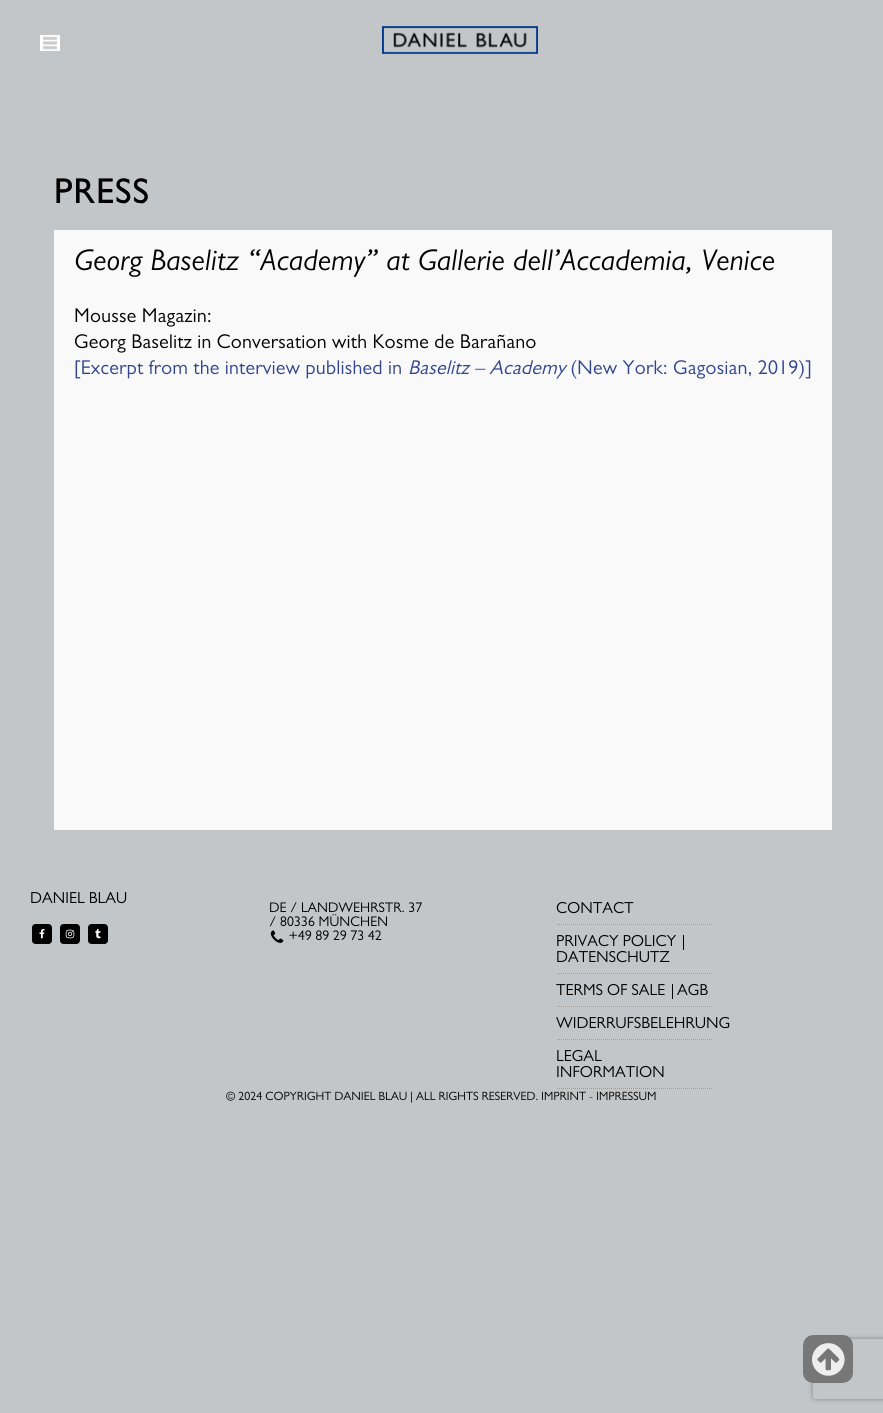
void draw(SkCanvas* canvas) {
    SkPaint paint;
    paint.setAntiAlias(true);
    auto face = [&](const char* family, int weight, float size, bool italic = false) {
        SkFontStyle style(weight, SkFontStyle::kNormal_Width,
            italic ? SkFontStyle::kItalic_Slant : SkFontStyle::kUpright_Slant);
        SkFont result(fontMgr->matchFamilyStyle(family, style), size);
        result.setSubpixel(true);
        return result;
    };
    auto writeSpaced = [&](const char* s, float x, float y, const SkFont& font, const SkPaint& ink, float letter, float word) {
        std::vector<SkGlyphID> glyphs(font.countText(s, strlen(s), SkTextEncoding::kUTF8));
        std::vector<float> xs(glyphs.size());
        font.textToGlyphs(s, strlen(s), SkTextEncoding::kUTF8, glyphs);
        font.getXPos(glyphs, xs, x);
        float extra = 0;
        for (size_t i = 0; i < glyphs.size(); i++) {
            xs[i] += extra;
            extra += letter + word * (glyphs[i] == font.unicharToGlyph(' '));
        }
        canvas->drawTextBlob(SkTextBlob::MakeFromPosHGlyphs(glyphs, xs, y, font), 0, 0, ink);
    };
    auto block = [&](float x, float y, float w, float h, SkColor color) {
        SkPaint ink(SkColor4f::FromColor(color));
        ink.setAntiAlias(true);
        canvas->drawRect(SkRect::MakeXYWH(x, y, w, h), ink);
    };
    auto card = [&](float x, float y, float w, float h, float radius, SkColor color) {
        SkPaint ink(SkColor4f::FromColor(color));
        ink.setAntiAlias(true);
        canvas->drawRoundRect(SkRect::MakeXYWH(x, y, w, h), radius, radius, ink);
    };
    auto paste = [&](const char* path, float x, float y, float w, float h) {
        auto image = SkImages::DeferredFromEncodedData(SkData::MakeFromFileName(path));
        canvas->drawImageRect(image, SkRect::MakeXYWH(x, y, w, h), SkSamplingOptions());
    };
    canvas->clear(SkColorSetRGB(195, 198, 200));
    paste("pic1.png", 40, 35, 20, 16);
    paste("pic2.png", 382, 26, 156, 28);
    auto kFont1 = face("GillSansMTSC", 400, 36);
    paint.setColor(SK_ColorBLACK);
    writeSpaced("PRESS", 54, 203, kFont1, paint, 1, 0);
    block(54, 230, 778, 600, SkColorSetRGB(249, 249, 250));
    paste("pic3.png", 75, 249, 700, 28);
    paste("pic4.png", 75, 308, 136, 19);
    paste("pic5.png", 74, 334, 462, 19);
    paste("pic6.png", 75, 360, 326, 19);
    paste("pic7.png", 409, 360, 159, 19);
    paste("pic8.png", 571, 360, 240, 19);
    paste("pic9.png", 31, 892, 96, 12);
    paste("pic10.png", 32, 924, 20, 20);
    paste("pic11.png", 60, 924, 20, 20);
    paste("pic12.png", 88, 924, 20, 20);
    paste("pic13.png", 270, 902, 152, 11);
    paste("pic14.png", 269, 914, 118, 13);
    paste("pic15.png", 270, 930, 14, 13);
    paste("pic16.png", 289, 930, 93, 11);
    paste("pic17.png", 556, 901, 78, 13);
    block(556, 924, 157, 1, SkColorSetRGB(153, 153, 153));
    paint.setStyle(SkPaint::kStroke_Style);
    paint.setStrokeWidth(1);
    paint.setColor(SkColorSetRGB(204, 204, 204));
    paint.setPathEffect(SkDashPathEffect::Make({{1, 1}}, 0));
    canvas->drawPath(SkPathBuilder().moveTo(556, 924.5f).lineTo(713, 924.5f).detach(), paint);
    paint.setPathEffect(nullptr);
    paste("pic18.png", 557, 934, 120, 13);
    block(683, 935, 1, 15, SK_ColorBLACK);
    paste("pic19.png", 557, 950, 113, 13);
    block(556, 973, 157, 1, SkColorSetRGB(153, 153, 153));
    paint.setPathEffect(SkDashPathEffect::Make({{1, 1}}, 0));
    canvas->drawPath(SkPathBuilder().moveTo(556, 973.5f).lineTo(713, 973.5f).detach(), paint);
    paint.setPathEffect(nullptr);
    paste("pic20.png", 556, 983, 109, 13);
    block(672, 984, 1, 15, SK_ColorBLACK);
    paste("pic21.png", 677, 983, 31, 13);
    block(556, 1006, 157, 1, SkColorSetRGB(153, 153, 153));
    paint.setPathEffect(SkDashPathEffect::Make({{1, 1}}, 0));
    canvas->drawPath(SkPathBuilder().moveTo(556, 1006.5f).lineTo(713, 1006.5f).detach(), paint);
    paint.setPathEffect(nullptr);
    paste("pic22.png", 556, 1016, 174, 13);
    block(556, 1039, 157, 1, SkColorSetRGB(153, 153, 153));
    paint.setPathEffect(SkDashPathEffect::Make({{1, 1}}, 0));
    canvas->drawPath(SkPathBuilder().moveTo(556, 1039.5f).lineTo(713, 1039.5f).detach(), paint);
    paint.setPathEffect(nullptr);
    paste("pic23.png", 557, 1049, 45, 13);
    paste("pic24.png", 557, 1065, 107, 13);
    block(556, 1088, 157, 1, SkColorSetRGB(153, 153, 153));
    paint.setPathEffect(SkDashPathEffect::Make({{1, 1}}, 0));
    canvas->drawPath(SkPathBuilder().moveTo(556, 1088.5f).lineTo(713, 1088.5f).detach(), paint);
    paint.setPathEffect(nullptr);
    paste("pic25.png", 226, 1091, 312, 12);
    paste("pic26.png", 542, 1091, 44, 9);
    paint.setStyle(SkPaint::kFill_Style);
    paint.setColor(SK_ColorBLACK);
    canvas->drawPath(SkPathBuilder().moveTo(592.5f, 1097).lineTo(592.5f, 1097.5f).lineTo(589.5f, 1097.5f).lineTo(589.5f, 1097).close().detach(), paint);
    paste("pic27.png", 597, 1091, 59, 10);
    canvas->save();
    canvas->clipPath(SkPathBuilder(SkPathFillType::kEvenOdd).moveTo(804, 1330).lineTo(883, 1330).lineTo(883, 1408).lineTo(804, 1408).close().moveTo(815, 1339).lineTo(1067, 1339).cubicTo(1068, 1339, 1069, 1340, 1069, 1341).lineTo(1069, 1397).cubicTo(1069, 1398, 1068, 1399, 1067, 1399).lineTo(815, 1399).cubicTo(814, 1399, 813, 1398, 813, 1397).lineTo(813, 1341).cubicTo(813, 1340, 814, 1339, 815, 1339).close().detach(), true);
    paint.setColor(SkColorSetRGB(128, 128, 128));
    paint.setMaskFilter(SkMaskFilter::MakeBlur(kNormal_SkBlurStyle, 2.5f));
    canvas->drawRoundRect(SkRect::MakeXYWH(813, 1339, 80, 60), 2, 2, paint);
    paint.setMaskFilter(nullptr);
    canvas->restore();
    card(803, 1335, 50, 48, 10, SkColorSetRGB(119, 119, 119));
    paste("pic28.png", 812, 1343, 33, 33);
}
